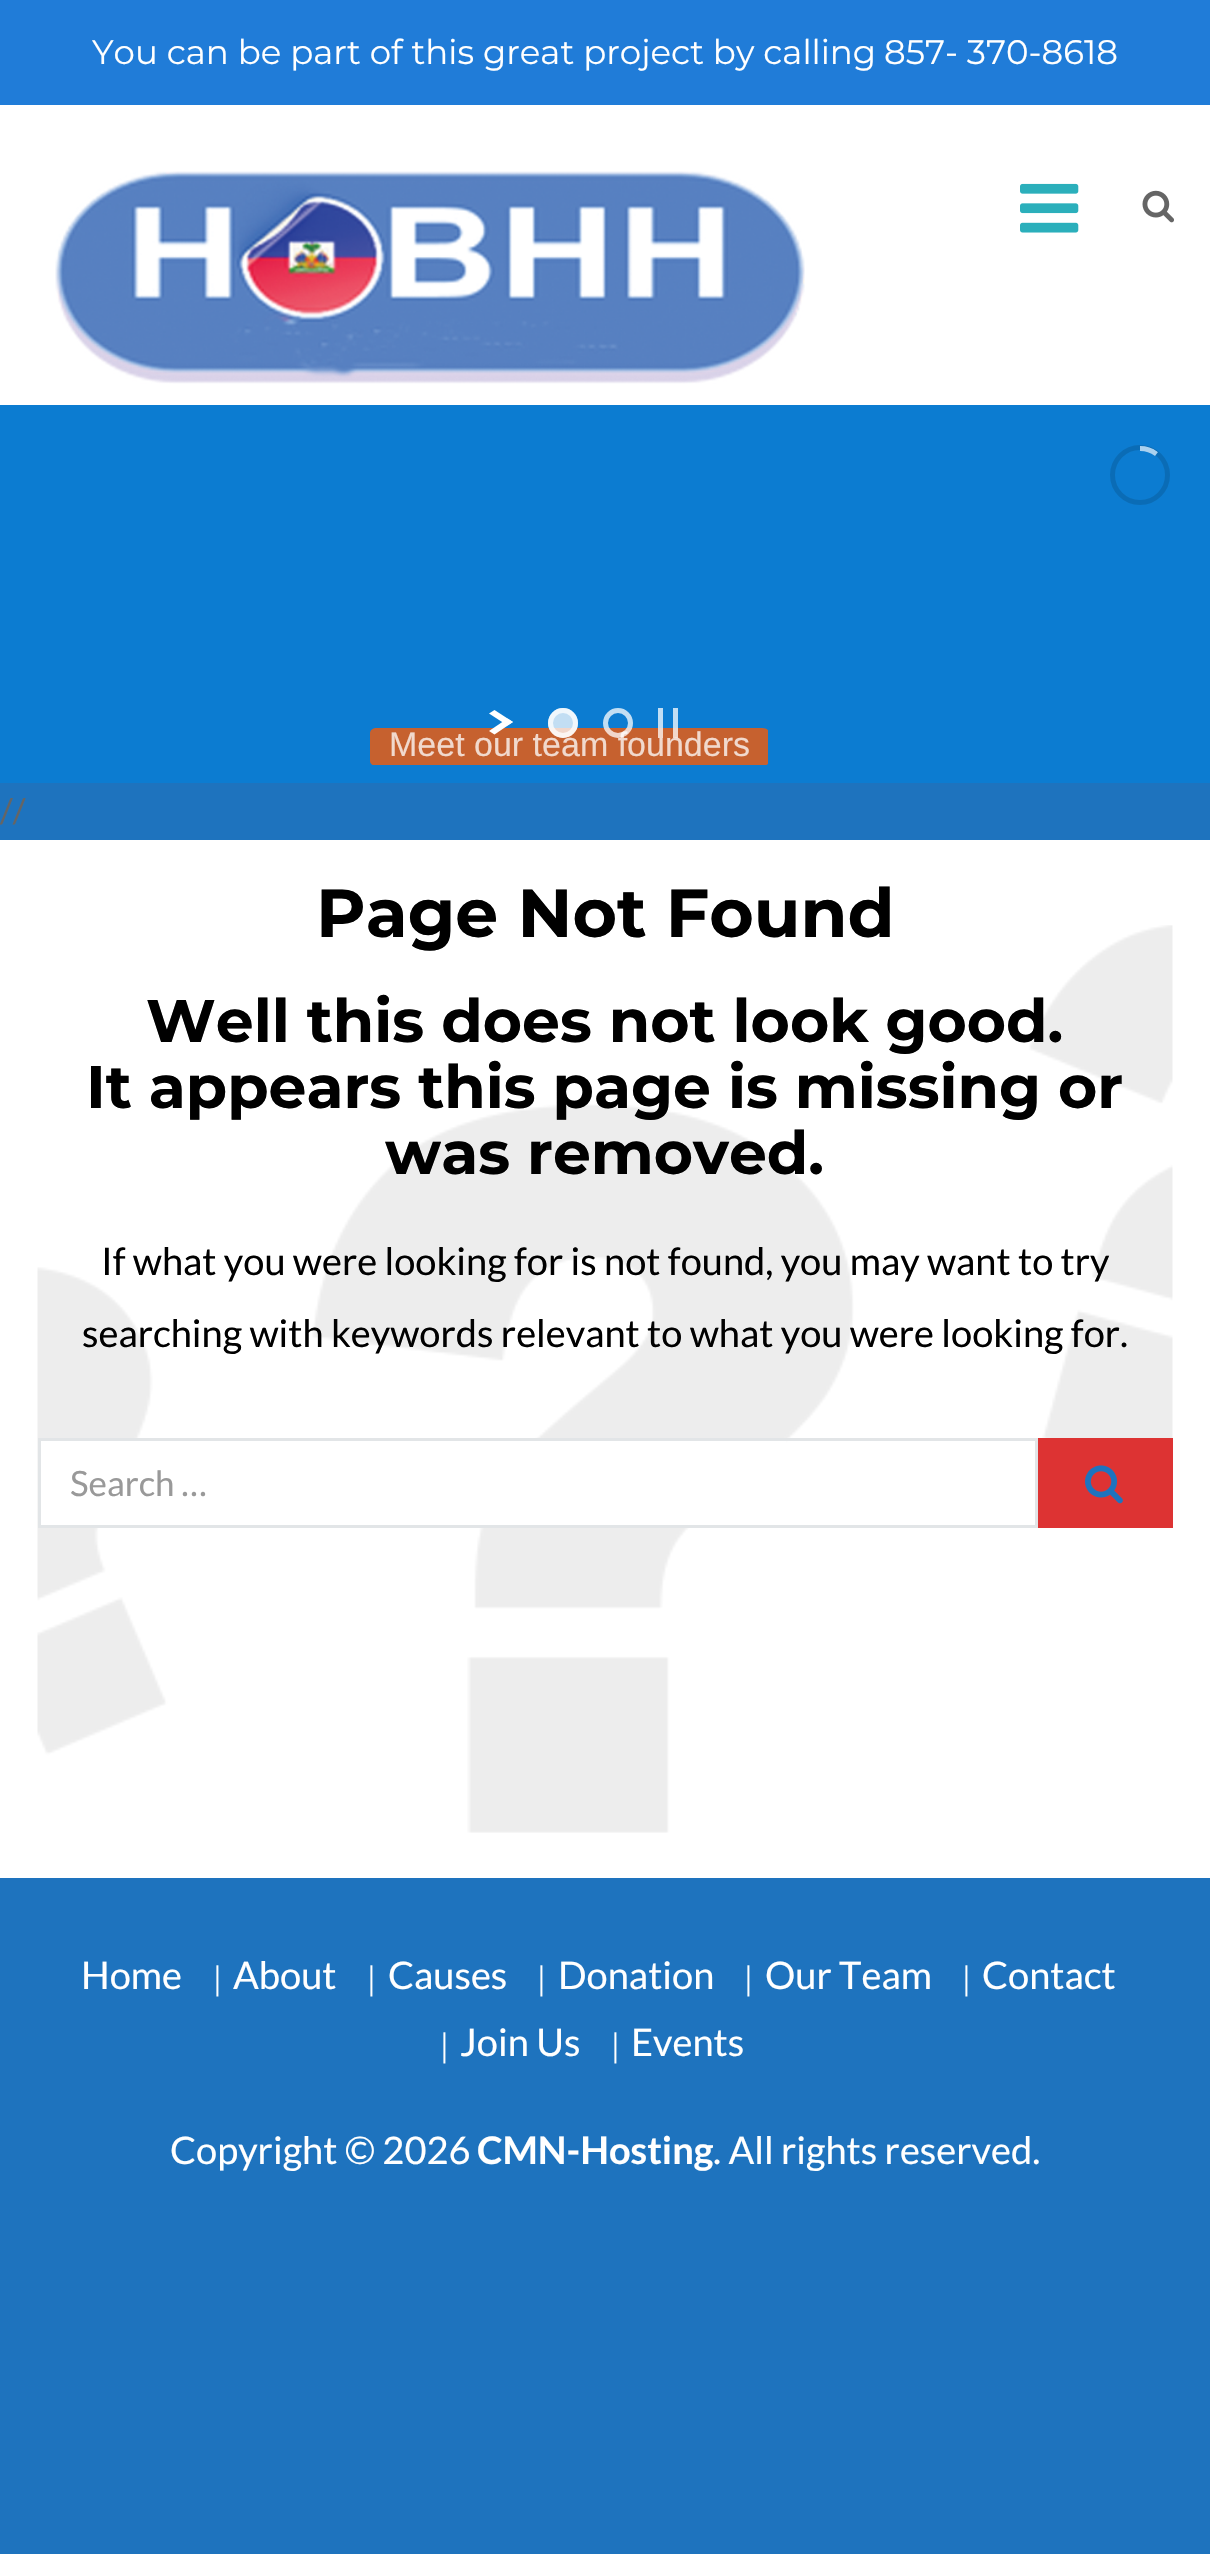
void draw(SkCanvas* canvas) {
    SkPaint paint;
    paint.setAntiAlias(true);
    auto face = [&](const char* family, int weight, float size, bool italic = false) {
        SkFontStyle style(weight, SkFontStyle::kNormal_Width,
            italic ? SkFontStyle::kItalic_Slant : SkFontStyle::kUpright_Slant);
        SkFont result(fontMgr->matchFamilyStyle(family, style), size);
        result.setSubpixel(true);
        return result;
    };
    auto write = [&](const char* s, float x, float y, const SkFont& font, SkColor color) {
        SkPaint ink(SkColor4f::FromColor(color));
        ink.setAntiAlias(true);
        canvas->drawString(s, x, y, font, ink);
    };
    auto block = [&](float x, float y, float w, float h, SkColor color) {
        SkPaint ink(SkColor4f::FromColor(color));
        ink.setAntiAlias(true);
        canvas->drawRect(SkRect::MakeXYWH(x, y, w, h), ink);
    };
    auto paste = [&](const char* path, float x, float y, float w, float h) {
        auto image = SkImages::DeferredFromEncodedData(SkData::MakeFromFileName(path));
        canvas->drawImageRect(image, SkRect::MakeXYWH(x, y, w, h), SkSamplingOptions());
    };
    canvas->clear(SkColorSetRGB(30, 115, 190));
    block(0, 105, 1210, 300, SK_ColorWHITE);
    block(0, 0, 1210, 105, SkColorSetRGB(32, 124, 216));
    auto kFont1 = face("Montserrat", 400, 34);
    write("You can be part of this great project by calling", 92, 64, kFont1, SK_ColorWHITE);
    write("857- 370-8618", 884, 64, kFont1, SK_ColorWHITE);
    paste("pic1.png", 55, 171, 750, 213);
    paste("pic2.png", 1020, 183, 59, 50);
    paste("pic3.png", 1142, 190, 32, 33);
    block(0, 405, 1210, 378, SkColorSetRGB(12, 124, 209));
    paint.setStyle(SkPaint::kStroke_Style);
    paint.setStrokeWidth(5);
    paint.setColor(SkColorSetRGB(10, 108, 182));
    canvas->drawCircle(1140, 475, 27.5f, paint);
    canvas->save();
    canvas->clipRect(SkRect::MakeXYWH(1140, 445, 30, 60));
    canvas->clipPath(SkPathBuilder().moveTo(1134, 434).lineTo(1158, 452).lineTo(1122, 500).lineTo(1098, 482).close().detach(), true);
    paint.setColor(SkColorSetRGB(170, 209, 239));
    canvas->drawPath(SkPathBuilder().moveTo(1156.5f, 454).cubicTo(1168.5f, 463, 1171, 480, 1162, 492.5f).cubicTo(1153, 504.5f, 1136, 507, 1123.5f, 498).cubicTo(1111.5f, 489, 1109, 472, 1118, 459.5f).cubicTo(1127, 447.5f, 1144, 445, 1156.5f, 454).close().detach(), paint);
    canvas->restore();
    paint.setStyle(SkPaint::kFill_Style);
    paint.setColor(SK_ColorWHITE);
    canvas->drawPath(SkPathBuilder().moveTo(494.5f, 710).lineTo(513, 722).lineTo(507.5f, 725.5f).lineTo(489, 713.5f).close().detach(), paint);
    canvas->save();
    canvas->clipRect(SkRect::MakeXYWH(370, 728, 398, 37));
    paint.setColor(SkColorSetRGB(198, 97, 47));
    canvas->drawPath(SkPathBuilder().moveTo(370, 733).cubicTo(370, 730, 373, 728, 377, 728).lineTo(762, 728).cubicTo(766, 728, 769, 730, 769, 733).lineTo(769, 761).cubicTo(769, 764, 766, 766, 762, 766).lineTo(377, 766).cubicTo(373, 766, 370, 764, 370, 761).close().detach(), paint);
    canvas->restore();
    auto kFont2 = face("Liberation Sans", 400, 34);
    write("Meet our team founders", 389, 756, kFont2, SkColorSetRGB(241, 217, 205));
    paint.setColor(SK_ColorWHITE);
    canvas->drawPath(SkPathBuilder().moveTo(507.5f, 718.5f).lineTo(513, 722).lineTo(494.5f, 734.5f).lineTo(489, 731).close().detach(), paint);
    paint.setColor(SkColorSetARGB(191, 255, 255, 255));
    canvas->drawCircle(563, 723, 15, paint);
    paint.setStyle(SkPaint::kStroke_Style);
    canvas->drawCircle(563, 723, 12.5f, paint);
    canvas->drawCircle(618, 723, 12.5f, paint);
    block(673, 708, 5, 30, SkColorSetARGB(191, 255, 255, 255));
    block(658, 708, 5, 30, SkColorSetARGB(191, 255, 255, 255));
    auto kFont3 = face("Lato", 400, 34);
    write("//", 0, 823, kFont3, SkColorSetRGB(101, 101, 101));
    block(0, 840, 1210, 1038, SK_ColorWHITE);
    paste("pic4.png", 37, 925, 1136, 908);
    auto kFont4 = face("Montserrat", 700, 68);
    write("Page Not Found", 316, 937, kFont4, SK_ColorBLACK);
    auto kFont5 = face("Montserrat", 700, 60);
    write("Well this does not look good.", 146, 1042, kFont5, SK_ColorBLACK);
    write("It appears this page is missing or", 86, 1108, kFont5, SK_ColorBLACK);
    write("was removed.", 385, 1174, kFont5, SK_ColorBLACK);
    auto kFont6 = face("Lato", 400, 38);
    write("If what you were looking for is not found, you may want to try", 101, 1275, kFont6, SK_ColorBLACK);
    write("searching with keywords relevant to what you were looking for.", 82, 1347, kFont6, SK_ColorBLACK);
    block(41, 1441, 745, 84, SK_ColorWHITE);
    paint.setStrokeWidth(3);
    paint.setColor(SkColorSetRGB(226, 229, 231));
    canvas->drawRect(SkRect::MakeXYWH(39.5f, 1439.5f, 997, 87), paint);
    auto kFont7 = face("Lato", 400, 35);
    write("Search …", 70, 1496, kFont7, SkColorSetRGB(153, 153, 153));
    block(1038, 1438, 135, 90, SkColorSetRGB(221, 51, 51));
    paste("pic5.png", 1085, 1465, 38, 39);
    write("Home", 81, 1989, kFont6, SK_ColorWHITE);
    auto kFont8 = face("Liberation Serif", 400, 34);
    write("|", 214, 1989, kFont8, SK_ColorWHITE);
    write("About", 233, 1989, kFont6, SK_ColorWHITE);
    write("|", 368, 1989, kFont8, SK_ColorWHITE);
    write("Causes", 388, 1989, kFont6, SK_ColorWHITE);
    write("|", 538, 1989, kFont8, SK_ColorWHITE);
    write("Donation", 558, 1989, kFont6, SK_ColorWHITE);
    write("|", 745, 1989, kFont8, SK_ColorWHITE);
    write("Our Team", 765, 1989, kFont6, SK_ColorWHITE);
    write("|", 963, 1989, kFont8, SK_ColorWHITE);
    write("Contact", 982, 1989, kFont6, SK_ColorWHITE);
    write("|", 441, 2056, kFont8, SK_ColorWHITE);
    write("Join Us", 460, 2056, kFont6, SK_ColorWHITE);
    write("|", 612, 2056, kFont8, SK_ColorWHITE);
    write("Events", 631, 2056, kFont6, SK_ColorWHITE);
    write("Copyright © 2026", 170, 2164, kFont6, SK_ColorWHITE);
    auto kFont9 = face("Lato", 700, 38);
    write("CMN-Hosting", 477, 2164, kFont9, SK_ColorWHITE);
    write(". All rights reserved.", 713, 2164, kFont6, SK_ColorWHITE);
}
